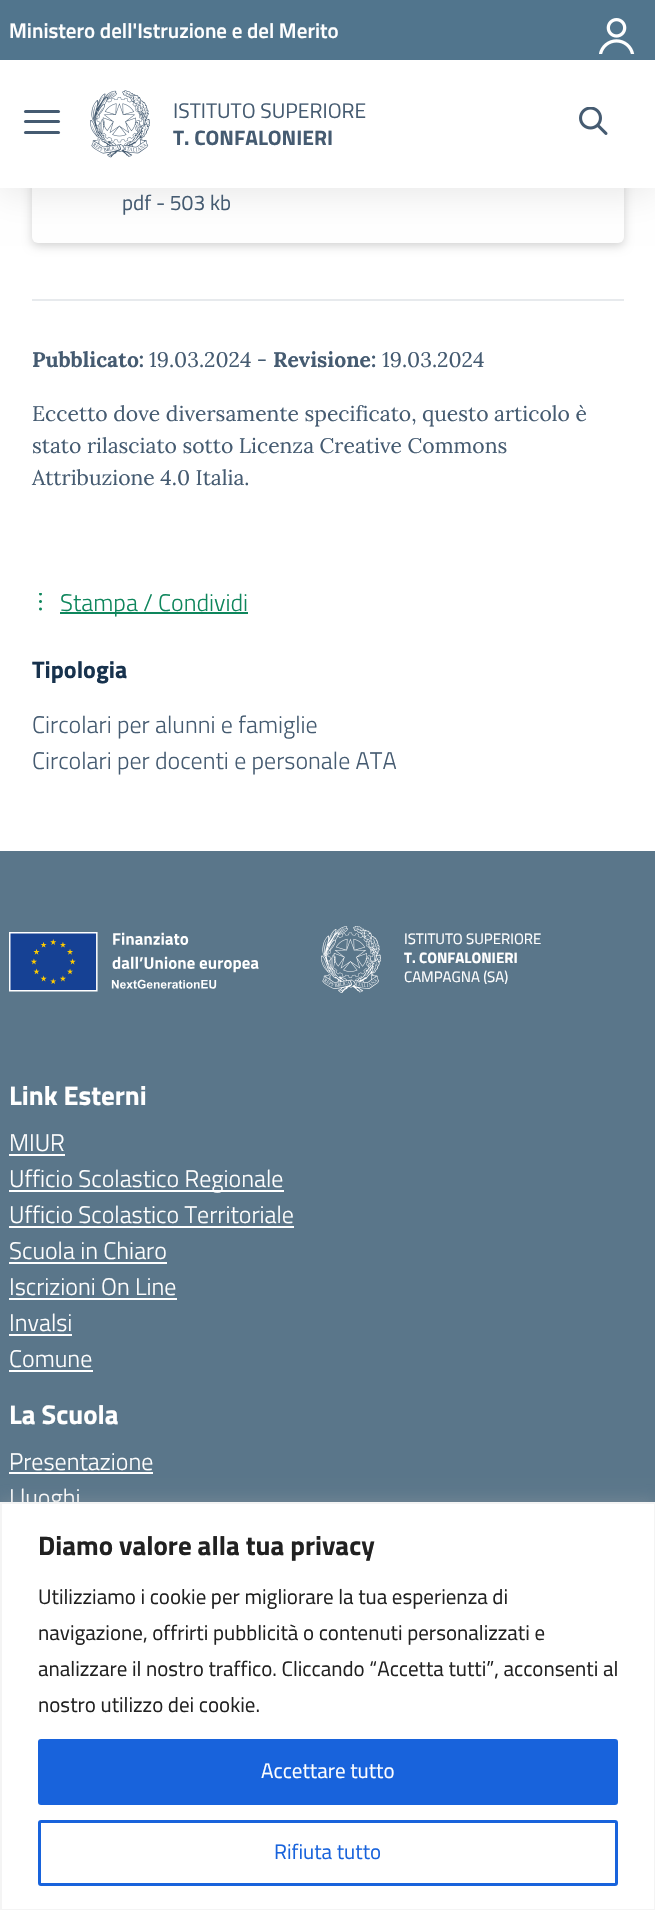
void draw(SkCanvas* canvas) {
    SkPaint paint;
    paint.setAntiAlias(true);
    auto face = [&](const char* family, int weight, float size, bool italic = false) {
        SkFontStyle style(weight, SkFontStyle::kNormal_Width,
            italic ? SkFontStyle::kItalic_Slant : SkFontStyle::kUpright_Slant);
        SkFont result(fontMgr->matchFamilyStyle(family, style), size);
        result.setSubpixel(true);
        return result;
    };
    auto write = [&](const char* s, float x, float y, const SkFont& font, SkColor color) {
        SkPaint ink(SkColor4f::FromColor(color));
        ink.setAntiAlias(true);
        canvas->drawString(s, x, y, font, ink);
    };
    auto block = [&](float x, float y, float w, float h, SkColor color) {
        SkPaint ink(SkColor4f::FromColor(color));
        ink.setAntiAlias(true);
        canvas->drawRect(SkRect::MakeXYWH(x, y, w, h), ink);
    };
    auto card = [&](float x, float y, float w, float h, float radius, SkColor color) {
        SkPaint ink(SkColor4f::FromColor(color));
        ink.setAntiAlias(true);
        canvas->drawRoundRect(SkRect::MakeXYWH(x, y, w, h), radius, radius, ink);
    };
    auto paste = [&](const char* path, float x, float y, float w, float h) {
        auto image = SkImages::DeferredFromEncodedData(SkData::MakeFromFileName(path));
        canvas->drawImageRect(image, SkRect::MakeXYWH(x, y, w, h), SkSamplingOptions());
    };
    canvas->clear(SK_ColorWHITE);
    paint.setColor(SkColorSetARGB(43, 0, 0, 0));
    paint.setMaskFilter(SkMaskFilter::MakeBlur(kNormal_SkBlurStyle, 5));
    canvas->drawRoundRect(SkRect::MakeXYWH(32, 123, 592, 123), 6, 6, paint);
    paint.setMaskFilter(nullptr);
    card(32, 120, 592, 123, 6, SK_ColorWHITE);
    paint.setColor(SkColorSetARGB(26, 0, 0, 0));
    paint.setMaskFilter(SkMaskFilter::MakeBlur(kNormal_SkBlurStyle, 18.5f));
    canvas->drawRect(SkRect::MakeXYWH(0, 3, 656, 188), paint);
    paint.setMaskFilter(nullptr);
    block(0, 60, 655, 128, SK_ColorWHITE);
    block(0, 0, 655, 60, SkColorSetRGB(81, 117, 141));
    auto kFont1 = face("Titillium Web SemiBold", 600, 21);
    write("Ministero dell'Istruzione e del Merito", 9, 38, kFont1, SK_ColorWHITE);
    paste("pic1.png", 599, 18, 36, 36);
    card(24, 120, 36, 3, 1.5f, SkColorSetRGB(69, 91, 113));
    card(24, 110, 36, 3, 1.5f, SkColorSetRGB(69, 91, 113));
    card(24, 131, 36, 3, 1.5f, SkColorSetRGB(69, 91, 113));
    paste("pic2.png", 90, 90, 60, 68);
    auto kFont2 = face("Titillium Web", 400, 21.1f);
    write("ISTITUTO SUPERIORE", 173, 118, kFont2, SkColorSetRGB(69, 91, 113));
    auto kFont3 = face("Titillium Web", 700, 21.1f);
    write("T. CONFALONIERI", 173, 145, kFont3, SkColorSetRGB(69, 91, 113));
    paste("pic3.png", 579, 107, 29, 28);
    write("pdf - 503 kb", 122, 210, kFont2, SkColorSetRGB(69, 91, 113));
    block(32, 299, 592, 2, SkColorSetRGB(231, 234, 237));
    auto kFont4 = face("Lora", 700, 21.1f);
    write("Pubblicato:", 32, 367, kFont4, SkColorSetRGB(69, 91, 113));
    auto kFont5 = face("Lora", 400, 21.1f);
    write("19.03.2024 -", 149, 367, kFont5, SkColorSetRGB(69, 91, 113));
    write("Revisione:", 273, 367, kFont4, SkColorSetRGB(69, 91, 113));
    write("19.03.2024", 382, 367, kFont5, SkColorSetRGB(69, 91, 113));
    write("Eccetto dove diversamente specificato, questo articolo è", 32, 421, kFont5, SkColorSetRGB(69, 91, 113));
    write("stato rilasciato sotto Licenza Creative Commons", 32, 453, kFont5, SkColorSetRGB(69, 91, 113));
    write("Attribuzione 4.0 Italia.", 32, 485, kFont5, SkColorSetRGB(69, 91, 113));
    paste("pic4.png", 39, 593, 3, 18);
    block(60, 612, 188, 2, SkColorSetRGB(14, 134, 92));
    auto kFont6 = face("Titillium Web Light", 300, 24);
    write("Stampa / Condividi", 60, 611, kFont6, SkColorSetRGB(14, 134, 92));
    auto kFont7 = face("Titillium Web", 700, 24);
    write("Tipologia", 32, 678, kFont7, SkColorSetRGB(23, 50, 77));
    write("Circolari per alunni e famiglie", 32, 733, kFont6, SkColorSetRGB(69, 91, 113));
    write("Circolari per docenti e personale ATA", 32, 769, kFont6, SkColorSetRGB(69, 91, 113));
    block(0, 851, 655, 651, SkColorSetRGB(90, 118, 138));
    paste("pic5.png", 9, 932, 250, 60);
    paste("pic6.png", 321, 926, 60, 67);
    auto kFont8 = face("Titillium Web", 400, 15);
    write("ISTITUTO SUPERIORE", 404, 944, kFont8, SK_ColorWHITE);
    auto kFont9 = face("Titillium Web", 700, 15);
    write("T. CONFALONIERI", 404, 963, kFont9, SK_ColorWHITE);
    write("CAMPAGNA (SA)", 404, 982, kFont8, SK_ColorWHITE);
    auto kFont10 = face("Titillium Web", 700, 27);
    write("Link Esterni", 9, 1105, kFont10, SK_ColorWHITE);
    write("MIUR", 9, 1151, kFont6, SK_ColorWHITE);
    block(9, 1154, 56, 2, SK_ColorWHITE);
    block(9, 1190, 275, 2, SK_ColorWHITE);
    write("Ufficio Scolastico Regionale", 9, 1187, kFont6, SK_ColorWHITE);
    write("Ufficio Scolastico Territoriale", 9, 1223, kFont6, SK_ColorWHITE);
    block(9, 1226, 285, 2, SK_ColorWHITE);
    write("Scuola in Chiaro", 9, 1259, kFont6, SK_ColorWHITE);
    block(9, 1262, 158, 2, SK_ColorWHITE);
    write("Iscrizioni On Line", 9, 1295, kFont6, SK_ColorWHITE);
    block(9, 1298, 168, 2, SK_ColorWHITE);
    write("Invalsi", 9, 1331, kFont6, SK_ColorWHITE);
    block(9, 1334, 63, 2, SK_ColorWHITE);
    write("Comune", 9, 1367, kFont6, SK_ColorWHITE);
    block(9, 1370, 84, 2, SK_ColorWHITE);
    write("La Scuola", 9, 1424, kFont10, SK_ColorWHITE);
    write("Presentazione", 9, 1470, kFont6, SK_ColorWHITE);
    block(9, 1472, 144, 2, SK_ColorWHITE);
    write("I luoghi", 9, 1506, kFont6, SK_ColorWHITE);
    paint.setColor(SkColorSetARGB(77, 172, 171, 171));
    paint.setMaskFilter(SkMaskFilter::MakeBlur(kNormal_SkBlurStyle, 7.5f));
    canvas->drawRect(SkRect::MakeXYWH(0, 1500, 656, 410), paint);
    paint.setMaskFilter(nullptr);
    paint.setColor(SK_ColorWHITE);
    canvas->drawRect(SkRect::MakeXYWH(1, 1503, 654, 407), paint);
    paint.setStyle(SkPaint::kStroke_Style);
    paint.setStrokeWidth(2);
    paint.setColor(SkColorSetRGB(244, 244, 244));
    canvas->drawRect(SkRect::MakeXYWH(1, 1503, 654, 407), paint);
    write("Diamo valore alla tua privacy", 38, 1555, kFont10, SkColorSetRGB(33, 33, 33));
    auto kFont11 = face("Titillium Web", 400, 21);
    write("Utilizziamo i cookie per migliorare la tua esperienza di", 38, 1604, kFont11, SkColorSetRGB(33, 33, 33));
    write("navigazione, offrirti pubblicità o contenuti personalizzati e", 38, 1640, kFont11, SkColorSetRGB(33, 33, 33));
    write("analizzare il nostro traffico. Cliccando “Accetta tutti”, acconsenti al", 38, 1676, kFont11, SkColorSetRGB(33, 33, 33));
    write("nostro utilizzo dei cookie.", 38, 1712, kFont11, SkColorSetRGB(33, 33, 33));
    paint.setStyle(SkPaint::kFill_Style);
    paint.setColor(SkColorSetRGB(24, 99, 220));
    canvas->drawRoundRect(SkRect::MakeXYWH(39.5f, 1740.5f, 577, 63), 1.5f, 1.5f, paint);
    paint.setStyle(SkPaint::kStroke_Style);
    paint.setStrokeWidth(3);
    canvas->drawRoundRect(SkRect::MakeXYWH(39.5f, 1740.5f, 577, 63), 1.5f, 1.5f, paint);
    write("Accettare tutto", 261, 1778, kFont11, SK_ColorWHITE);
    canvas->drawRoundRect(SkRect::MakeXYWH(39.5f, 1821.5f, 577, 63), 1.5f, 1.5f, paint);
    write("Rifiuta tutto", 274, 1859, kFont11, SkColorSetRGB(24, 99, 220));
}
